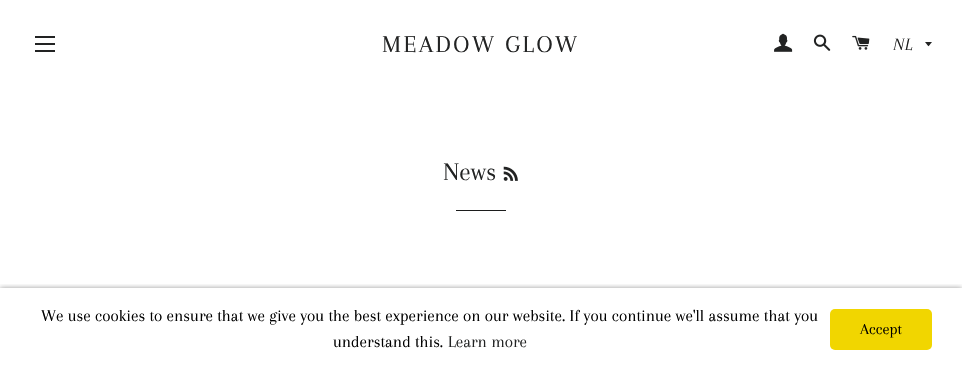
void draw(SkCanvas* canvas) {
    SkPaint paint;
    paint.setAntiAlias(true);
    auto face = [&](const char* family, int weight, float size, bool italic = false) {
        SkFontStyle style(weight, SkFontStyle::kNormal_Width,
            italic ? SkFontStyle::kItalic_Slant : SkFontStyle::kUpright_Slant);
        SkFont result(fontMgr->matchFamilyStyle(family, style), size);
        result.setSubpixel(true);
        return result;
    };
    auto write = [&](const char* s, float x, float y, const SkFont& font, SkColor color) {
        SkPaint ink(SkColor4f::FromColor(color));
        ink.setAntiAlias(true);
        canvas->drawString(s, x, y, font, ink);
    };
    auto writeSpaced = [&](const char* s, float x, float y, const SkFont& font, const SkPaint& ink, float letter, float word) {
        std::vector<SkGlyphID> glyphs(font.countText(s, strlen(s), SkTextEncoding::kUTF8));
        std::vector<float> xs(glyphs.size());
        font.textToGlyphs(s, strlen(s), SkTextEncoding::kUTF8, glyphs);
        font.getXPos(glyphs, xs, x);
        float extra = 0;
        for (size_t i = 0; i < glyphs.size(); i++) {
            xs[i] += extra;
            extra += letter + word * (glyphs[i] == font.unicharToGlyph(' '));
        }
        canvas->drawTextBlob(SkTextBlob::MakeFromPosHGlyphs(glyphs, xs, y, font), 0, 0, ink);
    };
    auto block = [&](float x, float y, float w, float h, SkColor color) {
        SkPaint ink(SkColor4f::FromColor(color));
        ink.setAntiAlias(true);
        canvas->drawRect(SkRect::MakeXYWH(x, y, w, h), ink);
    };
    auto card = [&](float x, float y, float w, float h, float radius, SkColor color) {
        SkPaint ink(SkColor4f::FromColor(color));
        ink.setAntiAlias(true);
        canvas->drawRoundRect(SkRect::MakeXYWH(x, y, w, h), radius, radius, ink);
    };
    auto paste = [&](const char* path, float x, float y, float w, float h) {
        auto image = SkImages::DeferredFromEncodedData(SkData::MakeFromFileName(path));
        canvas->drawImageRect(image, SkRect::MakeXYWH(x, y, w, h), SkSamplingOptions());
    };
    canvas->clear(SK_ColorWHITE);
    block(35, 36, 20, 2, SkColorSetRGB(34, 35, 35));
    block(35, 43, 20, 2, SkColorSetRGB(34, 35, 35));
    block(35, 50, 20, 2, SkColorSetRGB(34, 35, 35));
    auto kFont1 = face("Arapey", 400, 25);
    paint.setColor(SkColorSetRGB(34, 35, 35));
    writeSpaced("MEADOW GLOW", 382, 52, kFont1, paint, 2.5f, 0);
    paste("pic1.png", 774, 33, 19, 19);
    paste("pic2.png", 813, 34, 18, 17);
    paste("pic3.png", 852, 35, 18, 15);
    canvas->drawPath(SkPathBuilder().moveTo(925, 42).cubicTo(929.5f, 47.5f, 927.5f, 47.5f, 932, 42).close().detach(), paint);
    auto kFont2 = face("Arapey", 400, 18, true);
    write("NL", 893, 50, kFont2, SkColorSetRGB(28, 29, 29));
    auto kFont3 = face("Arapey", 400, 26);
    write("News", 443, 180, kFont3, SkColorSetRGB(34, 35, 35));
    paste("pic4.png", 503, 166, 15, 15);
    block(456, 210, 50, 1, SkColorSetRGB(28, 29, 29));
    canvas->save();
    canvas->clipRect(SkRect::MakeXYWH(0, 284, 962, 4));
    paint.setColor(SkColorSetARGB(102, 0, 0, 0));
    paint.setMaskFilter(SkMaskFilter::MakeBlur(kNormal_SkBlurStyle, 2.5f));
    canvas->drawRect(SkRect::MakeXYWH(0, 288, 962, 83), paint);
    paint.setMaskFilter(nullptr);
    canvas->restore();
    auto kFont4 = face("Arapey", 400, 17);
    write("We use cookies to ensure that we give you the best experience on our website. If you continue we'll assume that you", 41, 321, kFont4, SK_ColorBLACK);
    write("understand this.", 333, 347, kFont4, SK_ColorBLACK);
    write("Learn more", 448, 347, kFont4, SkColorSetRGB(34, 35, 35));
    card(830, 309, 102, 41, 5, SkColorSetRGB(241, 214, 0));
    auto kFont5 = face("Arapey", 400, 16);
    write("Accept", 860, 334, kFont5, SK_ColorBLACK);
}
